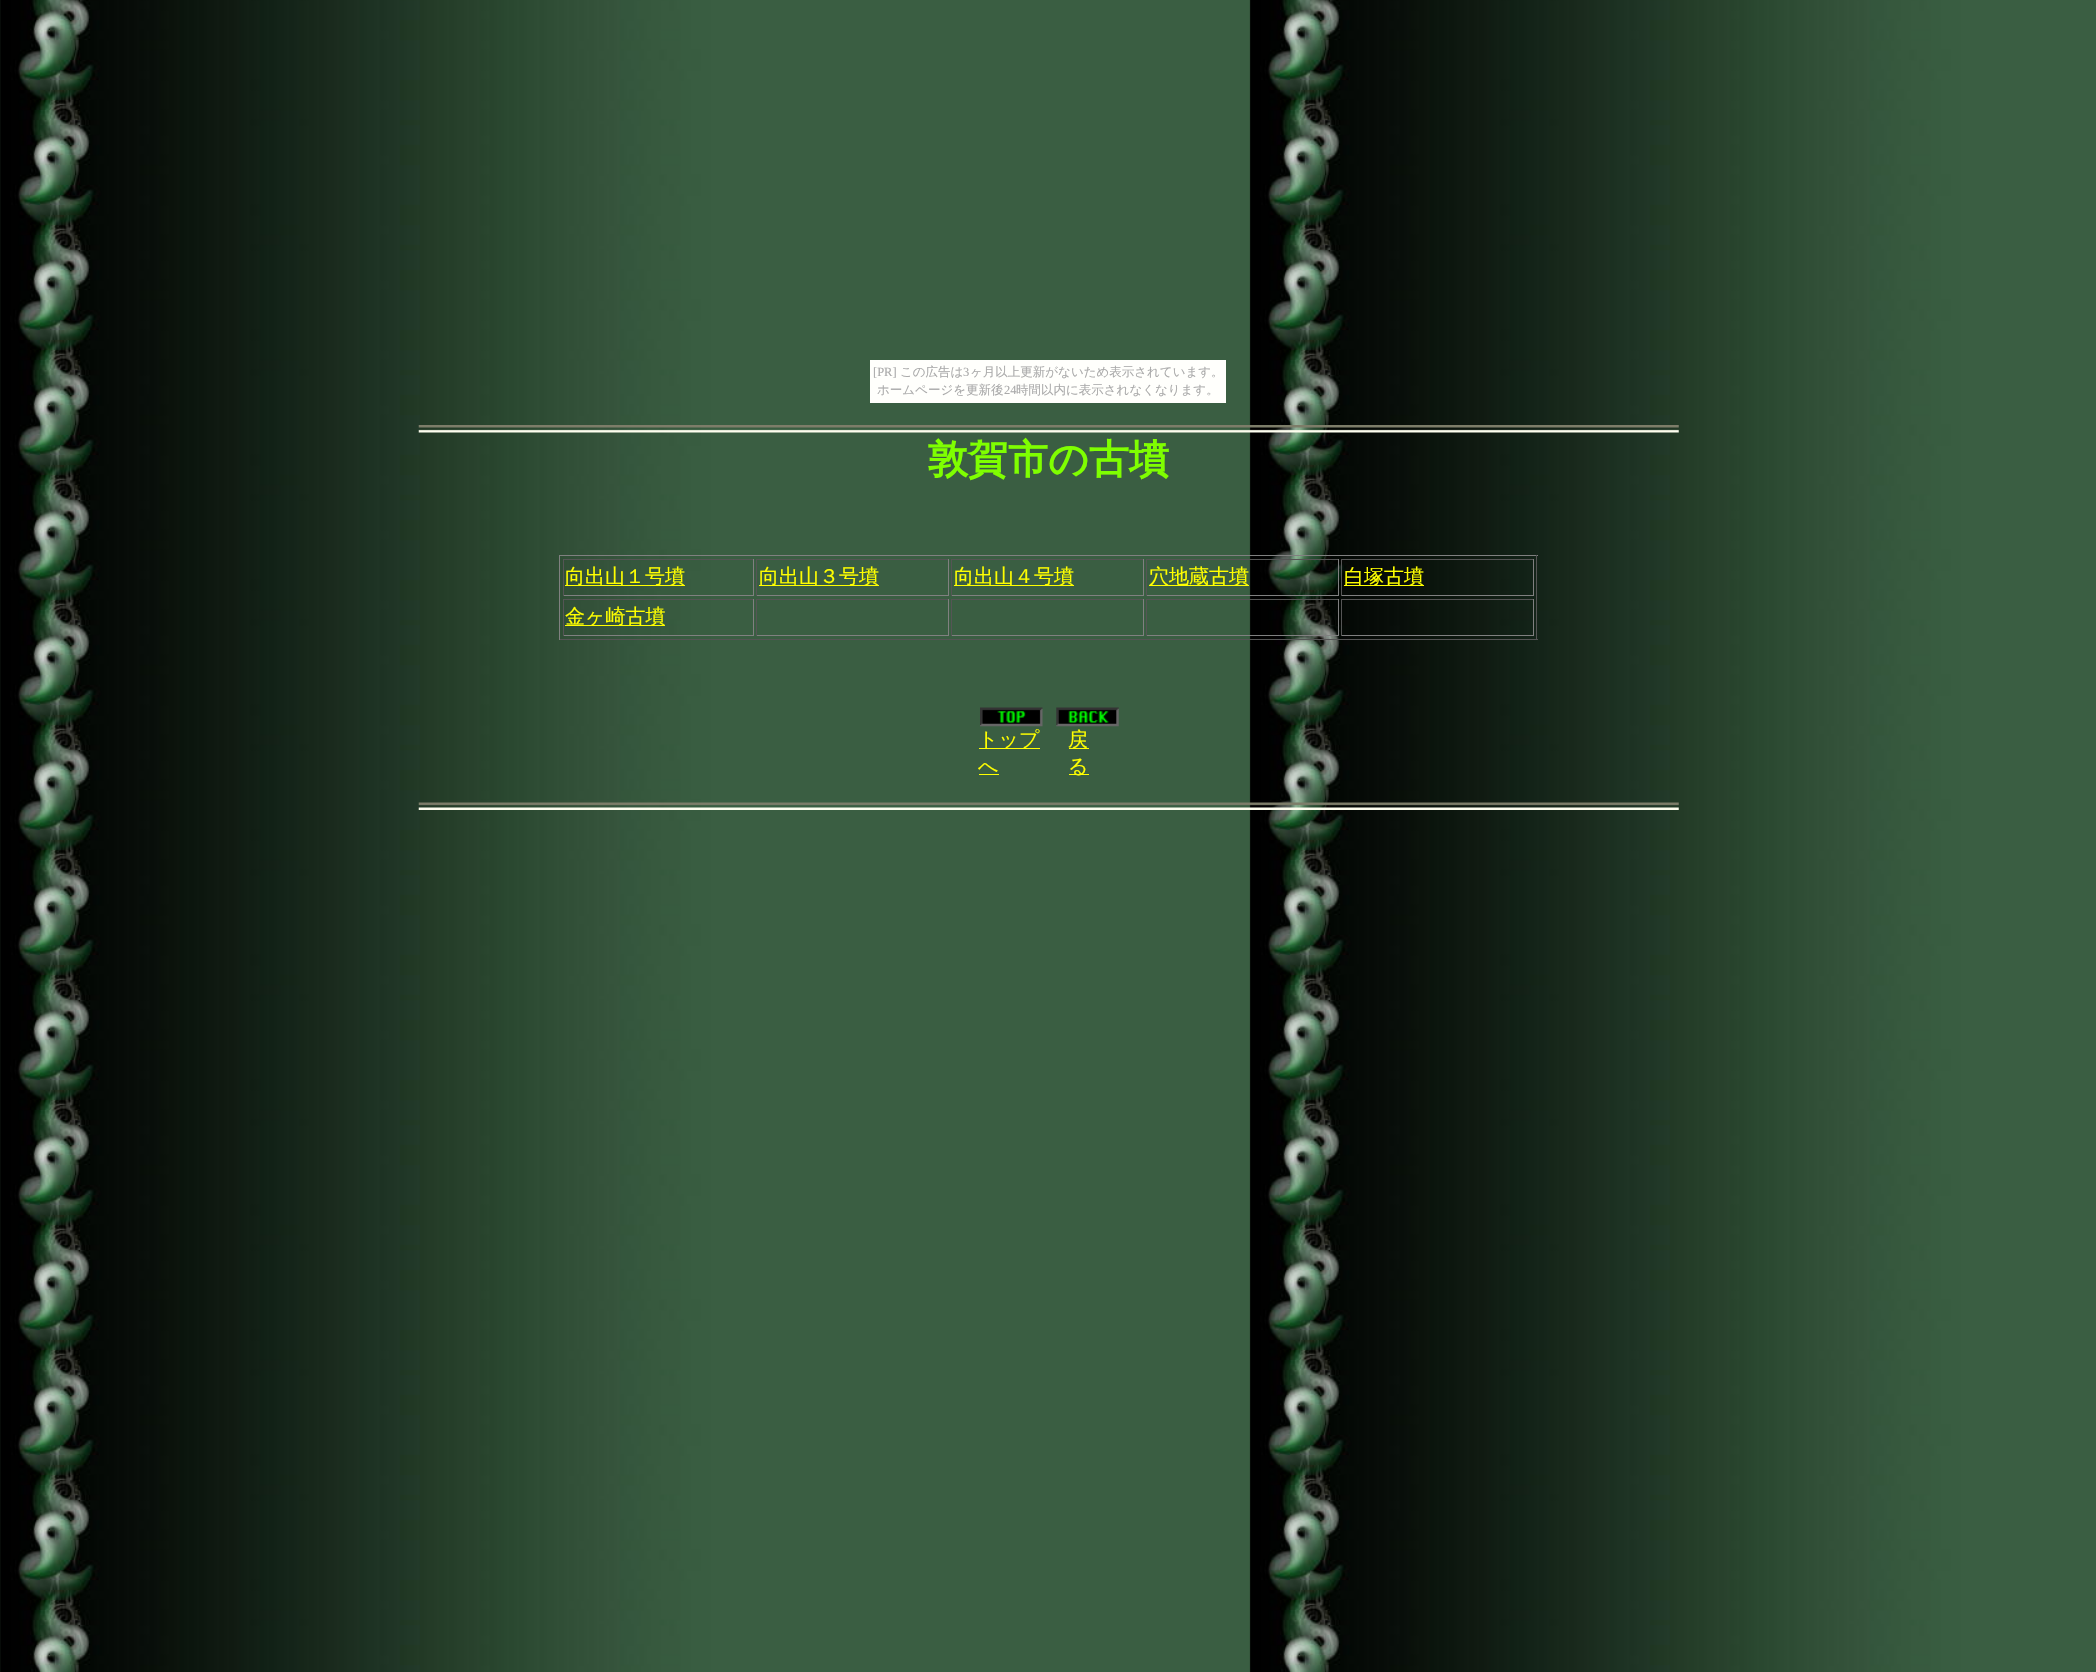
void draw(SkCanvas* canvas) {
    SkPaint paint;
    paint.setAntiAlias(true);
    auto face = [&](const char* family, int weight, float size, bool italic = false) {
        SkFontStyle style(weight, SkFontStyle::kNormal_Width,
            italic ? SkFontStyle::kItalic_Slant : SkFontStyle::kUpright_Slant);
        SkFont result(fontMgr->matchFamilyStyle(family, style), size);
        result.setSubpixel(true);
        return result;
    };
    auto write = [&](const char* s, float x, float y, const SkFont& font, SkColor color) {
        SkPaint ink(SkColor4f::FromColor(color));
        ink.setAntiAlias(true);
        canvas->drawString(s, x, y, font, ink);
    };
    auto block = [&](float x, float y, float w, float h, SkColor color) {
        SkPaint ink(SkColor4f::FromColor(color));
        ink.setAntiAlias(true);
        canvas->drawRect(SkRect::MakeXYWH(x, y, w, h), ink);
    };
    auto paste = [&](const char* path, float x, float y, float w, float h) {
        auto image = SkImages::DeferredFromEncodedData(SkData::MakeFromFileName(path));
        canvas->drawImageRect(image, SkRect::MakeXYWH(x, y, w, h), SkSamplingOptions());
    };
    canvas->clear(SK_ColorWHITE);
    paste("pic1.png", 0, 0, 2096, 1672);
    block(870, 360, 356, 43, SkColorSetRGB(255, 255, 252));
    auto kFont1 = face("Liberation Serif", 400, 12.5f);
    write("[PR]", 873, 376, kFont1, SkColorSetRGB(170, 170, 170));
    auto kFont2 = face("WenQuanYi Zen Hei", 500, 12.5f);
    write("この広告は", 900, 376, kFont2, SkColorSetRGB(170, 170, 170));
    write("3", 963, 376, kFont1, SkColorSetRGB(170, 170, 170));
    write("ヶ月以上更新がないため表示されています。", 970, 376, kFont2, SkColorSetRGB(170, 170, 170));
    write("ホームページを更新後", 877, 394, kFont2, SkColorSetRGB(170, 170, 170));
    write("24", 1004, 394, kFont1, SkColorSetRGB(170, 170, 170));
    write("時間以内に表示されなくなります。", 1016, 394, kFont2, SkColorSetRGB(170, 170, 170));
    paste("pic2.png", 418, 425, 1261, 8);
    auto kFont3 = face("WenQuanYi Zen Hei", 700, 40);
    write("敦賀市の古墳", 928, 473, kFont3, SkColorSetRGB(127, 255, 0));
    block(559, 555, 979, 1, SkColorSetRGB(128, 128, 128));
    block(1536, 555, 1, 85, SkColorSetRGB(85, 85, 85));
    block(559, 639, 979, 1, SkColorSetRGB(85, 85, 85));
    block(559, 555, 1, 85, SkColorSetRGB(128, 128, 128));
    block(563, 559, 191, 1, SkColorSetRGB(85, 85, 85));
    block(753, 559, 1, 37, SkColorSetRGB(128, 128, 128));
    block(563, 595, 191, 1, SkColorSetRGB(128, 128, 128));
    block(563, 559, 1, 37, SkColorSetRGB(85, 85, 85));
    block(565, 585, 120, 1, SkColorSetRGB(255, 255, 0));
    auto kFont4 = face("WenQuanYi Zen Hei", 500, 20);
    write("向出山１号墳", 565, 583, kFont4, SkColorSetRGB(255, 255, 0));
    block(756, 559, 193, 1, SkColorSetRGB(85, 85, 85));
    block(948, 559, 1, 37, SkColorSetRGB(128, 128, 128));
    block(756, 595, 193, 1, SkColorSetRGB(128, 128, 128));
    block(756, 559, 1, 37, SkColorSetRGB(85, 85, 85));
    block(759, 585, 120, 1, SkColorSetRGB(255, 255, 0));
    write("向出山３号墳", 759, 583, kFont4, SkColorSetRGB(255, 255, 0));
    block(951, 559, 193, 1, SkColorSetRGB(85, 85, 85));
    block(1143, 559, 1, 37, SkColorSetRGB(128, 128, 128));
    block(951, 595, 193, 1, SkColorSetRGB(128, 128, 128));
    block(951, 559, 1, 37, SkColorSetRGB(85, 85, 85));
    block(954, 585, 120, 1, SkColorSetRGB(255, 255, 0));
    write("向出山４号墳", 954, 583, kFont4, SkColorSetRGB(255, 255, 0));
    block(1146, 559, 193, 1, SkColorSetRGB(85, 85, 85));
    block(1338, 559, 1, 37, SkColorSetRGB(128, 128, 128));
    block(1146, 595, 193, 1, SkColorSetRGB(128, 128, 128));
    block(1146, 559, 1, 37, SkColorSetRGB(85, 85, 85));
    block(1149, 585, 100, 1, SkColorSetRGB(255, 255, 0));
    write("穴地蔵古墳", 1149, 583, kFont4, SkColorSetRGB(255, 255, 0));
    block(1341, 559, 193, 1, SkColorSetRGB(85, 85, 85));
    block(1533, 559, 1, 37, SkColorSetRGB(128, 128, 128));
    block(1341, 595, 193, 1, SkColorSetRGB(128, 128, 128));
    block(1341, 559, 1, 37, SkColorSetRGB(85, 85, 85));
    block(1344, 585, 80, 1, SkColorSetRGB(255, 255, 0));
    write("白塚古墳", 1344, 583, kFont4, SkColorSetRGB(255, 255, 0));
    block(563, 599, 191, 1, SkColorSetRGB(85, 85, 85));
    block(753, 599, 1, 37, SkColorSetRGB(128, 128, 128));
    block(563, 635, 191, 1, SkColorSetRGB(128, 128, 128));
    block(563, 599, 1, 37, SkColorSetRGB(85, 85, 85));
    block(565, 625, 100, 1, SkColorSetRGB(255, 255, 0));
    write("金ヶ崎古墳", 565, 623, kFont4, SkColorSetRGB(255, 255, 0));
    block(756, 599, 193, 1, SkColorSetRGB(85, 85, 85));
    block(948, 599, 1, 37, SkColorSetRGB(128, 128, 128));
    block(756, 635, 193, 1, SkColorSetRGB(128, 128, 128));
    block(756, 599, 1, 37, SkColorSetRGB(85, 85, 85));
    block(951, 599, 193, 1, SkColorSetRGB(85, 85, 85));
    block(1143, 599, 1, 37, SkColorSetRGB(128, 128, 128));
    block(951, 635, 193, 1, SkColorSetRGB(128, 128, 128));
    block(951, 599, 1, 37, SkColorSetRGB(85, 85, 85));
    block(1146, 599, 193, 1, SkColorSetRGB(85, 85, 85));
    block(1338, 599, 1, 37, SkColorSetRGB(128, 128, 128));
    block(1146, 635, 193, 1, SkColorSetRGB(128, 128, 128));
    block(1146, 599, 1, 37, SkColorSetRGB(85, 85, 85));
    block(1341, 599, 193, 1, SkColorSetRGB(85, 85, 85));
    block(1533, 599, 1, 37, SkColorSetRGB(128, 128, 128));
    block(1341, 635, 193, 1, SkColorSetRGB(128, 128, 128));
    block(1341, 599, 1, 37, SkColorSetRGB(85, 85, 85));
    paste("pic3.png", 980, 707, 63, 20);
    block(979, 748, 61, 1, SkColorSetRGB(255, 255, 0));
    write("トップ", 978, 746, kFont4, SkColorSetRGB(255, 255, 0));
    write("へ", 978, 773, kFont4, SkColorSetRGB(255, 255, 0));
    block(979, 774, 20, 1, SkColorSetRGB(255, 255, 0));
    paste("pic4.png", 1056, 707, 63, 20);
    block(1069, 748, 20, 1, SkColorSetRGB(255, 255, 0));
    write("戻", 1068, 746, kFont4, SkColorSetRGB(255, 255, 0));
    block(1069, 774, 20, 1, SkColorSetRGB(255, 255, 0));
    write("る", 1068, 773, kFont4, SkColorSetRGB(255, 255, 0));
    paste("pic5.png", 418, 802, 1261, 8);
}
